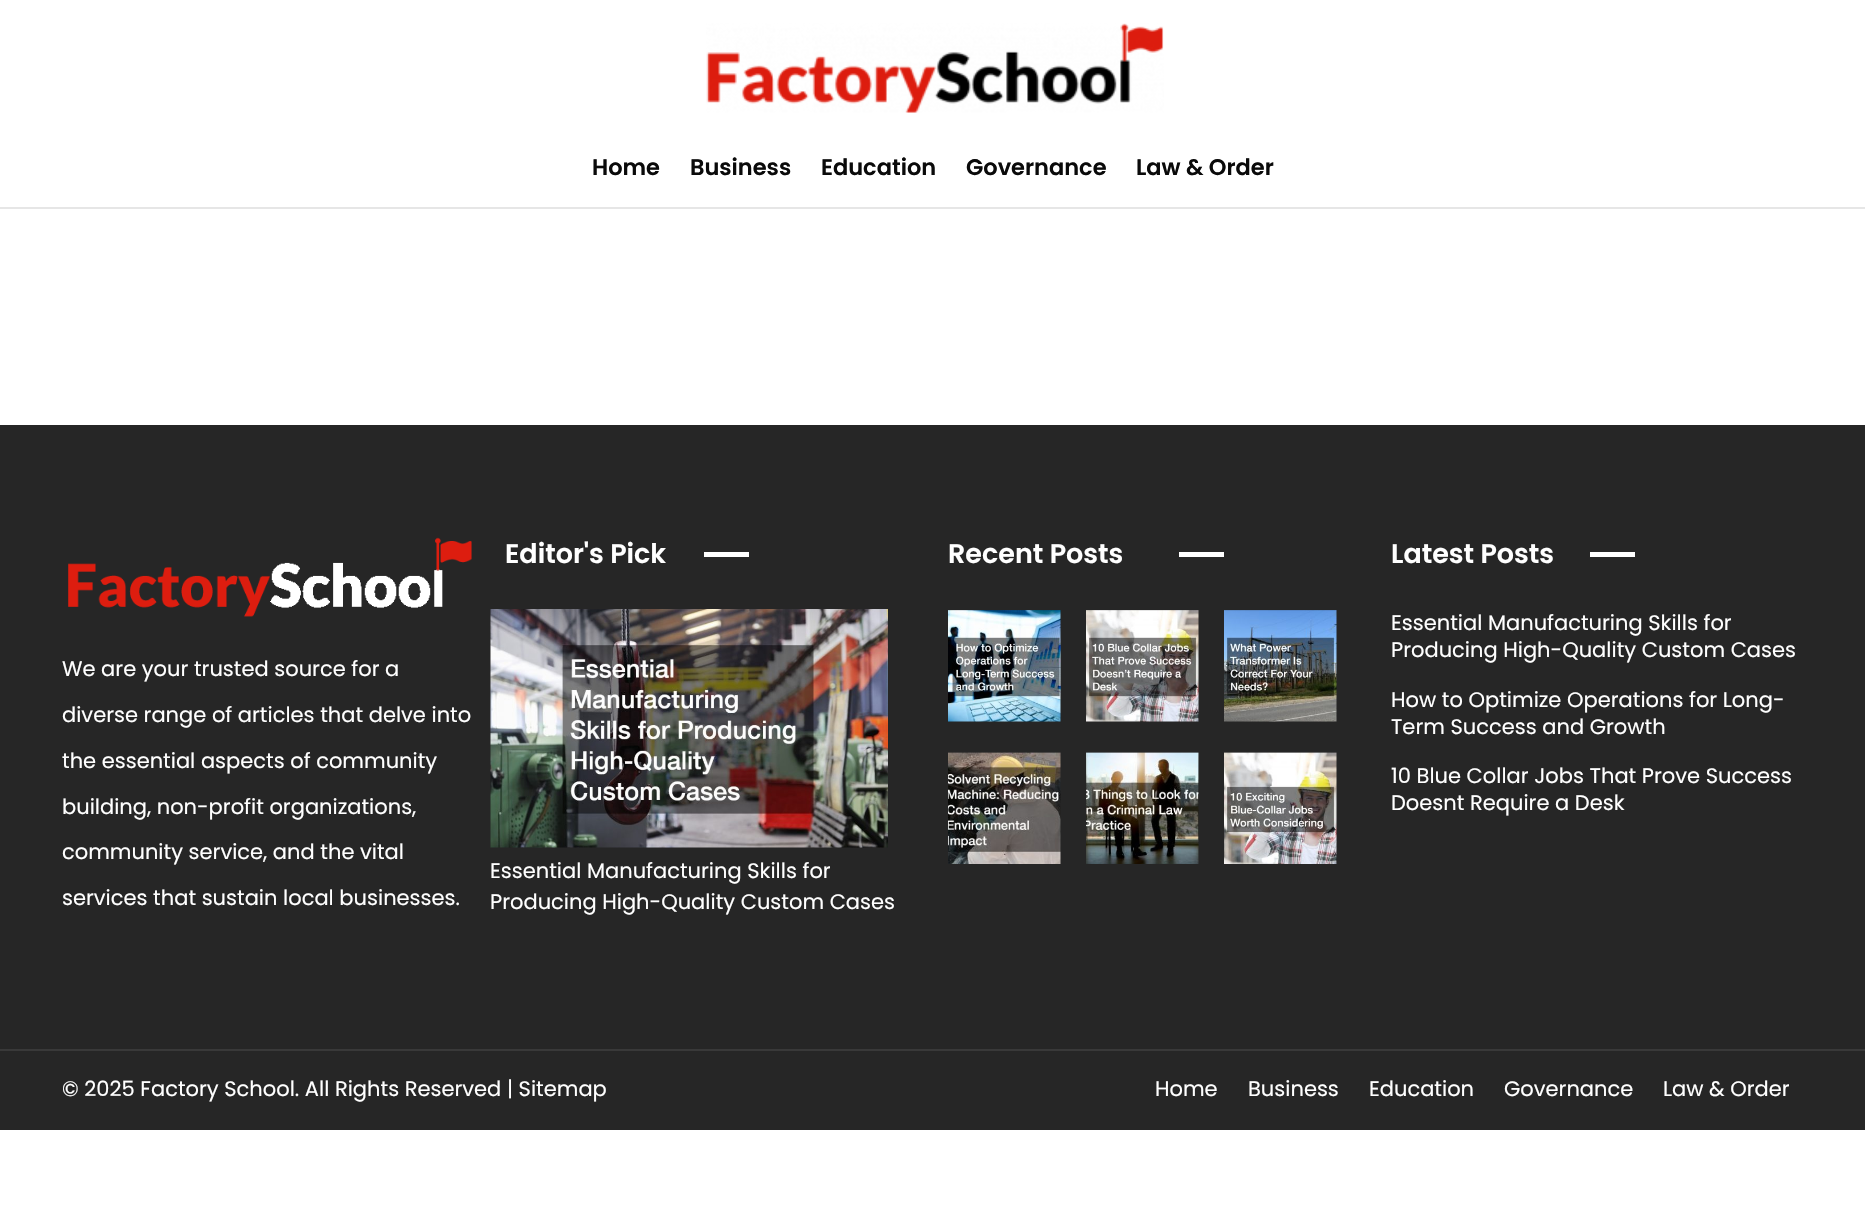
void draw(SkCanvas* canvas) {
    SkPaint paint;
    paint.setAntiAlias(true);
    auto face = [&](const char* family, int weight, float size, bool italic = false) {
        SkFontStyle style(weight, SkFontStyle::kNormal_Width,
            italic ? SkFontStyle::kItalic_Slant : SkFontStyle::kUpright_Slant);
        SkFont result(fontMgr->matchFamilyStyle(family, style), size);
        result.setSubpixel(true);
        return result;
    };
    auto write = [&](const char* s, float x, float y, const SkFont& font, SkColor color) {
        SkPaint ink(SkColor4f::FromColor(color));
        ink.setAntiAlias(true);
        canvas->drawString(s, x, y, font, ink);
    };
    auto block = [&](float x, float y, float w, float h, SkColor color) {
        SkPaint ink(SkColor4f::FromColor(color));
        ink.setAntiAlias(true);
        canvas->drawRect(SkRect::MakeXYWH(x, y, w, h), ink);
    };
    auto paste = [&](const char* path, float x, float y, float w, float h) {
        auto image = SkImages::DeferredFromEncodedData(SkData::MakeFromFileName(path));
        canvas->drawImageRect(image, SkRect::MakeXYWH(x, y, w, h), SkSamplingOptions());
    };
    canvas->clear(SK_ColorWHITE);
    paste("pic1.png", 706, 23, 458, 90);
    block(0, 207, 1865, 2, SkColorSetRGB(230, 230, 230));
    auto kFont1 = face("Poppins", 600, 22.5f);
    write("Home", 592, 175, kFont1, SkColorSetRGB(10, 10, 10));
    write("Business", 690, 175, kFont1, SkColorSetRGB(10, 10, 10));
    write("Education", 821, 175, kFont1, SkColorSetRGB(10, 10, 10));
    write("Governance", 966, 175, kFont1, SkColorSetRGB(10, 10, 10));
    write("Law & Order", 1136, 175, kFont1, SkColorSetRGB(10, 10, 10));
    block(0, 425, 1865, 624, SkColorSetRGB(38, 38, 38));
    paste("pic2.png", 68, 537, 404, 80);
    auto kFont2 = face("Poppins", 400, 21);
    write("We are your trusted source for a", 62, 676, kFont2, SK_ColorWHITE);
    write("diverse range of articles that delve into", 62, 722, kFont2, SK_ColorWHITE);
    write("the essential aspects of community", 62, 768, kFont2, SK_ColorWHITE);
    write("building, non-profit organizations,", 62, 814, kFont2, SK_ColorWHITE);
    write("community service, and the vital", 62, 859, kFont2, SK_ColorWHITE);
    write("services that sustain local businesses.", 62, 905, kFont2, SK_ColorWHITE);
    auto kFont3 = face("Poppins", 600, 27);
    write("Editor's Pick", 505, 563, kFont3, SK_ColorWHITE);
    block(704, 552, 45, 5, SK_ColorWHITE);
    paste("pic3.png", 490, 609, 398, 239);
    write("Essential Manufacturing Skills for", 490, 878, kFont2, SK_ColorWHITE);
    write("Producing High-Quality Custom Cases", 490, 909, kFont2, SK_ColorWHITE);
    write("Recent Posts", 948, 563, kFont3, SK_ColorWHITE);
    block(1179, 552, 45, 5, SK_ColorWHITE);
    paste("pic4.png", 948, 610, 113, 112);
    paste("pic5.png", 1086, 610, 113, 112);
    paste("pic6.png", 1224, 610, 113, 112);
    paste("pic7.png", 948, 752, 113, 112);
    paste("pic8.png", 1086, 752, 113, 112);
    paste("pic9.png", 1224, 752, 113, 112);
    write("Latest Posts", 1391, 563, kFont3, SK_ColorWHITE);
    block(1590, 552, 45, 5, SK_ColorWHITE);
    write("Essential Manufacturing Skills for", 1391, 630, kFont2, SK_ColorWHITE);
    write("Producing High-Quality Custom Cases", 1391, 657, kFont2, SK_ColorWHITE);
    write("How to Optimize Operations for Long-", 1391, 707, kFont2, SK_ColorWHITE);
    write("Term Success and Growth", 1391, 734, kFont2, SK_ColorWHITE);
    write("10 Blue Collar Jobs That Prove Success", 1391, 783, kFont2, SK_ColorWHITE);
    write("Doesnt Require a Desk", 1391, 810, kFont2, SK_ColorWHITE);
    block(0, 1051, 1865, 79, SkColorSetRGB(38, 38, 38));
    block(0, 1049, 1865, 2, SkColorSetRGB(57, 57, 57));
    write("© 2025 Factory School. All Rights Reserved | Sitemap", 62, 1096, kFont2, SK_ColorWHITE);
    write("Home", 1155, 1096, kFont2, SK_ColorWHITE);
    write("Business", 1248, 1096, kFont2, SK_ColorWHITE);
    write("Education", 1369, 1096, kFont2, SK_ColorWHITE);
    write("Governance", 1504, 1096, kFont2, SK_ColorWHITE);
    write("Law & Order", 1663, 1096, kFont2, SK_ColorWHITE);
}
